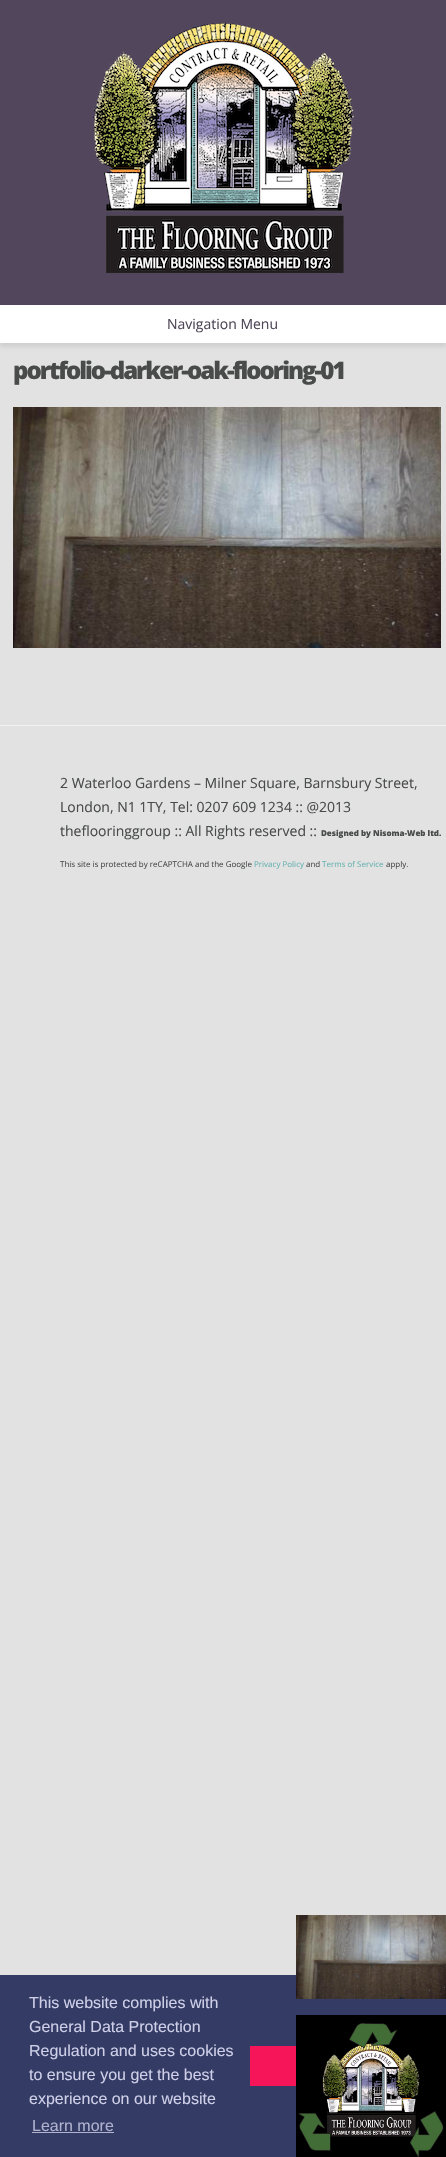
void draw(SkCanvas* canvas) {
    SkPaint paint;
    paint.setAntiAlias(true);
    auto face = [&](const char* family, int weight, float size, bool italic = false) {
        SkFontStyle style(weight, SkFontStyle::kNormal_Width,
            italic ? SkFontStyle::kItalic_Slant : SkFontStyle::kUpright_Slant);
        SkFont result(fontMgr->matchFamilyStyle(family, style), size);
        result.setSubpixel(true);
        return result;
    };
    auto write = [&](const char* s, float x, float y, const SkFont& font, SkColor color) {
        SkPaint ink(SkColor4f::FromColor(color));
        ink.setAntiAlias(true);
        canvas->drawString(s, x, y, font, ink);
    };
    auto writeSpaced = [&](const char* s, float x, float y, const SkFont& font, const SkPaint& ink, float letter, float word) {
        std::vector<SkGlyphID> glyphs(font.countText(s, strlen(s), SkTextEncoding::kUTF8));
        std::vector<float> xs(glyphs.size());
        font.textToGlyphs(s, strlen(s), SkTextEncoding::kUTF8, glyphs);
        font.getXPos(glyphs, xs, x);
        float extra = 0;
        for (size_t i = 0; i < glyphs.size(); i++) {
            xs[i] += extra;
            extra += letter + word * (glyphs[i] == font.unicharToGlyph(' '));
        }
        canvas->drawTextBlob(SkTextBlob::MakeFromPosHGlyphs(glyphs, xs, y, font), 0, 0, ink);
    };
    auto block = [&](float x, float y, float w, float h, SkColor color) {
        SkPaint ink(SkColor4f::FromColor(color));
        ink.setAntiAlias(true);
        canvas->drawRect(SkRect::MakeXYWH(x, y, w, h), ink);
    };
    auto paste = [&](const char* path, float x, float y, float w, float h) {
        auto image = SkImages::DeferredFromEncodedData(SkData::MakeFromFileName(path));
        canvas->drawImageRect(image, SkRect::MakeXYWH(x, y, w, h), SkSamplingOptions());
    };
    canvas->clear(SkColorSetRGB(226, 226, 226));
    paint.setColor(SkColorSetARGB(20, 0, 0, 0));
    paint.setMaskFilter(SkMaskFilter::MakeBlur(kNormal_SkBlurStyle, 2));
    canvas->drawRect(SkRect::MakeXYWH(0, 4, 446, 343), paint);
    paint.setMaskFilter(nullptr);
    block(0, 0, 446, 305, SkColorSetRGB(82, 70, 92));
    paste("pic1.png", 93, 23, 261, 250);
    block(0, 305, 446, 38, SK_ColorWHITE);
    auto kFont1 = face("Open Sans", 400, 14);
    write("Navigation Menu", 167, 329, kFont1, SkColorSetRGB(79, 70, 87));
    auto kFont2 = face("Open Sans", 800, 24);
    paint.setColor(SkColorSetRGB(73, 75, 75));
    writeSpaced("portfolio-darker-oak-flooring-01", 13, 379, kFont2, paint, -2, 0);
    paste("pic2.png", 13, 407, 428, 241);
    block(0, 725, 446, 1, SkColorSetRGB(243, 243, 243));
    write("2 Waterloo Gardens – Milner Square, Barnsbury Street,", 60, 788, kFont1, SkColorSetRGB(73, 75, 75));
    write("London, N1 1TY, Tel: 0207 609 1234 :: @2013", 60, 812, kFont1, SkColorSetRGB(73, 75, 75));
    write("theflooringgroup :: All Rights reserved ::", 60, 836, kFont1, SkColorSetRGB(73, 75, 75));
    auto kFont3 = face("Open Sans", 800, 8);
    write("Designed by Nisoma-Web ltd.", 321, 836, kFont3, SkColorSetRGB(73, 75, 75));
    auto kFont4 = face("Open Sans", 400, 8);
    write("This site is protected by reCAPTCHA and the Google", 60, 867, kFont4, SkColorSetRGB(73, 75, 75));
    write("Privacy Policy", 254, 867, kFont4, SkColorSetRGB(106, 179, 178));
    write("and", 306, 867, kFont4, SkColorSetRGB(73, 75, 75));
    write("Terms of Service", 322, 867, kFont4, SkColorSetRGB(106, 179, 178));
    write("apply.", 386, 867, kFont4, SkColorSetRGB(73, 75, 75));
    block(0, 1975, 446, 182, SkColorSetRGB(52, 60, 102));
    auto kFont5 = face("Liberation Sans", 400, 16);
    write("This website complies with", 29, 2008, kFont5, SkColorSetRGB(207, 207, 232));
    write("General Data Protection", 29, 2032, kFont5, SkColorSetRGB(207, 207, 232));
    write("Regulation and uses cookies", 29, 2056, kFont5, SkColorSetRGB(207, 207, 232));
    write("to ensure you get the best", 29, 2080, kFont5, SkColorSetRGB(207, 207, 232));
    write("experience on our website", 29, 2104, kFont5, SkColorSetRGB(207, 207, 232));
    write("Learn more", 32, 2131, kFont5, SkColorSetRGB(176, 178, 206));
    block(32, 2132, 82, 1, SkColorSetRGB(176, 178, 206));
    block(250, 2046, 46, 40, SkColorSetRGB(247, 21, 89));
    paste("pic3.png", 296, 1915, 150, 84);
    paste("pic4.png", 296, 2015, 150, 142);
}
